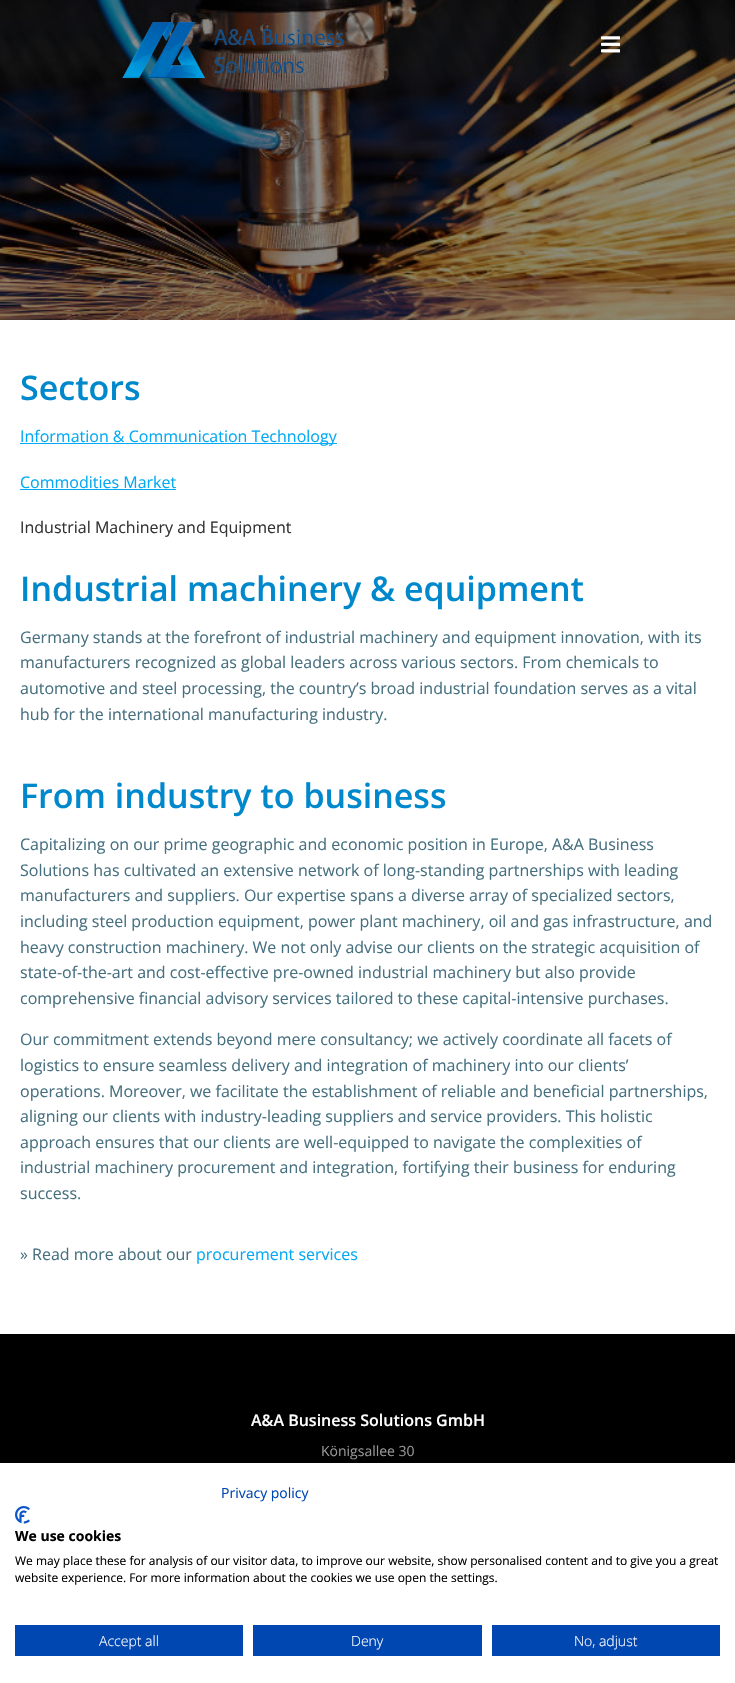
void draw(SkCanvas* canvas) {
    SkPaint paint;
    paint.setAntiAlias(true);
    auto face = [&](const char* family, int weight, float size, bool italic = false) {
        SkFontStyle style(weight, SkFontStyle::kNormal_Width,
            italic ? SkFontStyle::kItalic_Slant : SkFontStyle::kUpright_Slant);
        SkFont result(fontMgr->matchFamilyStyle(family, style), size);
        result.setSubpixel(true);
        return result;
    };
    auto write = [&](const char* s, float x, float y, const SkFont& font, SkColor color) {
        SkPaint ink(SkColor4f::FromColor(color));
        ink.setAntiAlias(true);
        canvas->drawString(s, x, y, font, ink);
    };
    auto block = [&](float x, float y, float w, float h, SkColor color) {
        SkPaint ink(SkColor4f::FromColor(color));
        ink.setAntiAlias(true);
        canvas->drawRect(SkRect::MakeXYWH(x, y, w, h), ink);
    };
    auto paste = [&](const char* path, float x, float y, float w, float h) {
        auto image = SkImages::DeferredFromEncodedData(SkData::MakeFromFileName(path));
        canvas->drawImageRect(image, SkRect::MakeXYWH(x, y, w, h), SkSamplingOptions());
    };
    canvas->clear(SK_ColorWHITE);
    paste("pic3.png", 0, 0, 735, 320);
    paste("pic1.png", 121, 22, 223, 57);
    paint.setColor(SkColorSetARGB(26, 0, 0, 0));
    canvas->drawCircle(611, 45, 17, paint);
    paste("pic2.png", 601, 36, 19, 17);
    auto kFont1 = face("Open Sans", 600, 34);
    write("Sectors", 20, 400, kFont1, SkColorSetRGB(0, 136, 204));
    block(20, 443, 317, 1, SkColorSetRGB(3, 169, 244));
    auto kFont2 = face("Open Sans", 400, 16);
    write("Information & Communication Technology", 20, 442, kFont2, SkColorSetRGB(3, 169, 244));
    write("Commodities Market", 20, 488, kFont2, SkColorSetRGB(3, 169, 244));
    block(20, 489, 156, 1, SkColorSetRGB(3, 169, 244));
    write("Industrial Machinery and Equipment", 20, 533, kFont2, SkColorSetRGB(51, 51, 51));
    write("Industrial machinery & equipment", 20, 601, kFont1, SkColorSetRGB(0, 136, 204));
    write("Germany stands at the forefront of industrial machinery and equipment innovation, with its", 20, 643, kFont2, SkColorSetRGB(70, 112, 127));
    write("manufacturers recognized as global leaders across various sectors. From chemicals to", 20, 668, kFont2, SkColorSetRGB(70, 112, 127));
    write("automotive and steel processing, the country’s broad industrial foundation serves as a vital", 20, 694, kFont2, SkColorSetRGB(70, 112, 127));
    write("hub for the international manufacturing industry.", 20, 720, kFont2, SkColorSetRGB(70, 112, 127));
    write("From industry to business", 20, 808, kFont1, SkColorSetRGB(0, 136, 204));
    write("Capitalizing on our prime geographic and economic position in Europe, A&A Business", 20, 850, kFont2, SkColorSetRGB(70, 112, 127));
    write("Solutions has cultivated an extensive network of long-standing partnerships with leading", 20, 876, kFont2, SkColorSetRGB(70, 112, 127));
    write("manufacturers and suppliers. Our expertise spans a diverse array of specialized sectors,", 20, 901, kFont2, SkColorSetRGB(70, 112, 127));
    write("including steel production equipment, power plant machinery, oil and gas infrastructure, and", 20, 927, kFont2, SkColorSetRGB(70, 112, 127));
    write("heavy construction machinery. We not only advise our clients on the strategic acquisition of", 20, 953, kFont2, SkColorSetRGB(70, 112, 127));
    write("state-of-the-art and cost-effective pre-owned industrial machinery but also provide", 20, 978, kFont2, SkColorSetRGB(70, 112, 127));
    write("comprehensive financial advisory services tailored to these capital-intensive purchases.", 20, 1004, kFont2, SkColorSetRGB(70, 112, 127));
    write("Our commitment extends beyond mere consultancy; we actively coordinate all facets of", 20, 1045, kFont2, SkColorSetRGB(70, 112, 127));
    write("logistics to ensure seamless delivery and integration of machinery into our clients’", 20, 1071, kFont2, SkColorSetRGB(70, 112, 127));
    write("operations. Moreover, we facilitate the establishment of reliable and beneficial partnerships,", 20, 1097, kFont2, SkColorSetRGB(70, 112, 127));
    write("aligning our clients with industry-leading suppliers and service providers. This holistic", 20, 1122, kFont2, SkColorSetRGB(70, 112, 127));
    write("approach ensures that our clients are well-equipped to navigate the complexities of", 20, 1148, kFont2, SkColorSetRGB(70, 112, 127));
    write("industrial machinery procurement and integration, fortifying their business for enduring", 20, 1173, kFont2, SkColorSetRGB(70, 112, 127));
    write("success.", 20, 1199, kFont2, SkColorSetRGB(70, 112, 127));
    write("» Read more about our", 20, 1260, kFont2, SkColorSetRGB(70, 112, 127));
    write("procurement services", 196, 1260, kFont2, SkColorSetRGB(3, 169, 244));
    block(0, 1334, 735, 129, SK_ColorBLACK);
    auto kFont3 = face("Open Sans", 600, 16);
    write("A&A Business Solutions GmbH", 251, 1426, kFont3, SK_ColorWHITE);
    auto kFont4 = face("Open Sans", 400, 14);
    write("Königsallee 30", 321, 1456, kFont4, SkColorSetRGB(153, 153, 153));
    paint.setMaskFilter(SkMaskFilter::MakeBlur(kNormal_SkBlurStyle, 12));
    canvas->drawRect(SkRect::MakeXYWH(0, 1463, 735, 220), paint);
    paint.setMaskFilter(nullptr);
    block(0, 1463, 735, 220, SK_ColorWHITE);
    write("Privacy policy", 221, 1498, kFont4, SkColorSetRGB(0, 71, 178));
    paste("pic4.png", 15, 1506, 15, 18);
    auto kFont5 = face("Open Sans", 700, 14);
    write("We use cookies", 15, 1541, kFont5, SK_ColorBLACK);
    auto kFont6 = face("Open Sans", 400, 12);
    write("We may place these for analysis of our visitor data, to improve our website, show personalised content and to give you a great", 15, 1565, kFont6, SK_ColorBLACK);
    write("website experience. For more information about the cookies we use open the settings.", 15, 1582, kFont6, SK_ColorBLACK);
    block(15, 1625, 228, 31, SkColorSetRGB(0, 71, 178));
    auto kFont7 = face("Open Sans", 300, 14);
    write("Accept all", 99, 1646, kFont7, SK_ColorWHITE);
    block(253, 1625, 229, 31, SkColorSetRGB(0, 71, 178));
    write("Deny", 351, 1646, kFont7, SK_ColorWHITE);
    block(492, 1625, 228, 31, SkColorSetRGB(0, 71, 178));
    write("No, adjust", 574, 1646, kFont7, SK_ColorWHITE);
}
